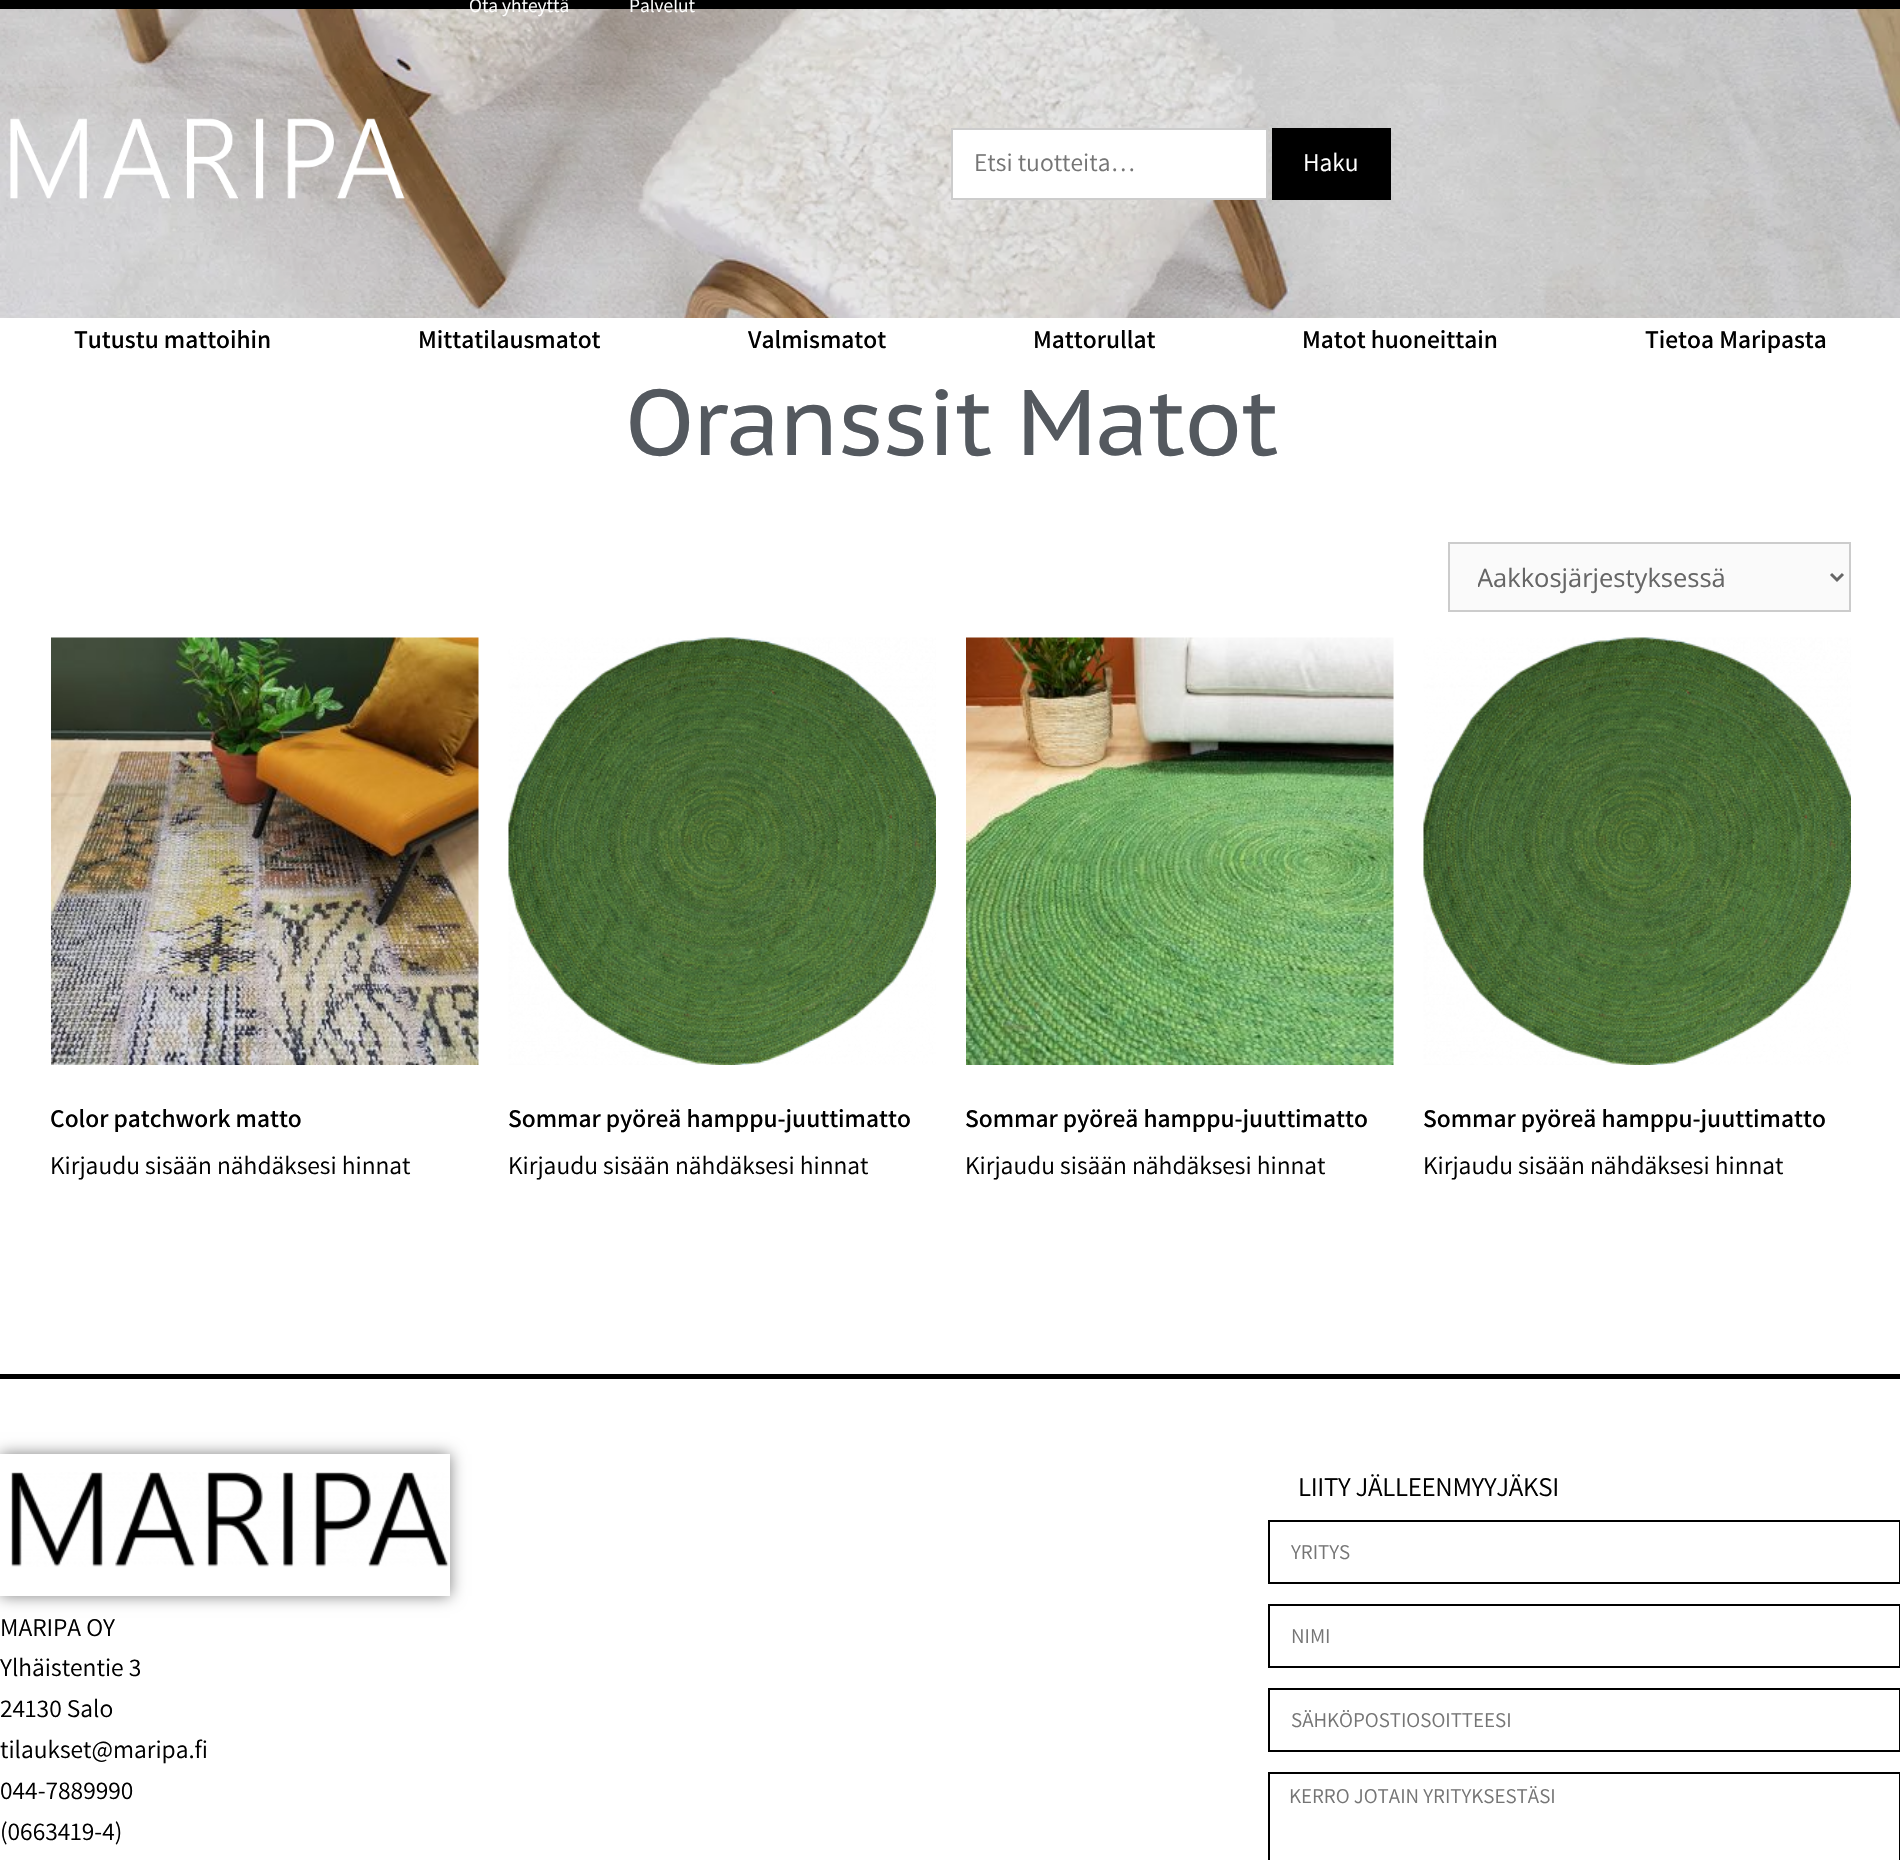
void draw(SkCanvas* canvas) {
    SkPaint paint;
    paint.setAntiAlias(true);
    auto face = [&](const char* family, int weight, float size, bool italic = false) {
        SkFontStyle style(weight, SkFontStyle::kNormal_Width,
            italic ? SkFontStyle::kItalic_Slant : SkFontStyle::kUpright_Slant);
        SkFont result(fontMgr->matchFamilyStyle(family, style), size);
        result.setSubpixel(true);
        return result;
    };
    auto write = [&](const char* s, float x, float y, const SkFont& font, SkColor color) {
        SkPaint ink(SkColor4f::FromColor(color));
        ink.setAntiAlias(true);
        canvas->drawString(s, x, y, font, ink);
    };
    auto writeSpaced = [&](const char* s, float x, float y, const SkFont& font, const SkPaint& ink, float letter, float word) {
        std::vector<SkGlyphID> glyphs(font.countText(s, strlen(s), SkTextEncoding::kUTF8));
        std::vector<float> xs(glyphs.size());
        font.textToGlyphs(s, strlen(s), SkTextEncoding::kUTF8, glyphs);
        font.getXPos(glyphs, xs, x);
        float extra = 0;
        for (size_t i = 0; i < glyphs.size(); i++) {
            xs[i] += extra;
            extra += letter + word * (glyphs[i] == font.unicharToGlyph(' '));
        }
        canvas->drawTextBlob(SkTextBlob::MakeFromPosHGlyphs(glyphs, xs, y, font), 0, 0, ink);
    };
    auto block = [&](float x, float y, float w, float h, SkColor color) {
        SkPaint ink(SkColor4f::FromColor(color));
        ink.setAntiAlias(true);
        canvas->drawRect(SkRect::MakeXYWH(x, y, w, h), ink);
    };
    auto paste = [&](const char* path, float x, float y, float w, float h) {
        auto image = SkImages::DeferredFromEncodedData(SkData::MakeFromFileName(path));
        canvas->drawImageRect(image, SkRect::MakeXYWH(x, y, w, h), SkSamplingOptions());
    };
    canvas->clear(SK_ColorWHITE);
    block(0, 0, 1900, 9, SK_ColorBLACK);
    paste("pic1.png", 0, 9, 1900, 309);
    auto kFont1 = face("Assistant", 400, 19.5f);
    write("Ota yhteyttä", 469, 12, kFont1, SK_ColorWHITE);
    write("Palvelut", 629, 12, kFont1, SK_ColorWHITE);
    paste("pic2.png", 10, 118, 395, 81);
    paint.setColor(SK_ColorWHITE);
    canvas->drawRect(SkRect::MakeXYWH(952, 129, 315, 70), paint);
    paint.setStyle(SkPaint::kStroke_Style);
    paint.setStrokeWidth(2);
    paint.setColor(SkColorSetRGB(204, 204, 204));
    canvas->drawRect(SkRect::MakeXYWH(952, 129, 315, 70), paint);
    auto kFont2 = face("Assistant", 400, 25.5f);
    write("Etsi tuotteita…", 974, 171, kFont2, SkColorSetRGB(117, 117, 117));
    block(1272, 128, 119, 72, SK_ColorBLACK);
    write("Haku", 1303, 171, kFont2, SK_ColorWHITE);
    auto kFont3 = face("Assistant", 600, 25.5f);
    write("Tutustu mattoihin", 74, 348, kFont3, SK_ColorBLACK);
    write("Mittatilausmatot", 418, 348, kFont3, SK_ColorBLACK);
    write("Valmismatot", 748, 348, kFont3, SK_ColorBLACK);
    write("Mattorullat", 1033, 348, kFont3, SK_ColorBLACK);
    write("Matot huoneittain", 1302, 348, kFont3, SK_ColorBLACK);
    write("Tietoa Maripasta", 1645, 348, kFont3, SK_ColorBLACK);
    auto kFont4 = face("PT Sans Caption", 400, 93);
    paint.setStyle(SkPaint::kFill_Style);
    paint.setColor(SkColorSetRGB(84, 89, 95));
    writeSpaced("Oranssit Matot", 625, 455, kFont4, paint, -1.6f, 0);
    paint.setColor(SkColorSetRGB(250, 250, 250));
    canvas->drawRect(SkRect::MakeXYWH(1449, 543, 401, 68), paint);
    paint.setStyle(SkPaint::kStroke_Style);
    paint.setColor(SkColorSetRGB(204, 204, 204));
    canvas->drawRect(SkRect::MakeXYWH(1449, 543, 401, 68), paint);
    paint.setStrokeWidth(3);
    paint.setColor(SkColorSetRGB(102, 102, 102));
    canvas->drawPath(SkPathBuilder().moveTo(1831, 574).lineTo(1837, 580).lineTo(1843, 574).detach(), paint);
    canvas->save();
    canvas->clipRect(SkRect::MakeXYWH(1478, 558, 325, 38));
    auto kFont5 = face("Open Sans", 400, 25.5f);
    write("Aakkosjärjestyksessä", 1477, 587, kFont5, SkColorSetRGB(102, 102, 102));
    canvas->restore();
    paste("pic3.png", 51, 637, 428, 428);
    write("Color patchwork matto", 50, 1127, kFont3, SK_ColorBLACK);
    write("Kirjaudu sisään nähdäksesi hinnat", 50, 1174, kFont2, SK_ColorBLACK);
    paste("pic4.png", 508, 637, 428, 428);
    write("Sommar pyöreä hamppu-juuttimatto", 508, 1127, kFont3, SK_ColorBLACK);
    write("Kirjaudu sisään nähdäksesi hinnat", 508, 1174, kFont2, SK_ColorBLACK);
    paste("pic5.png", 966, 637, 428, 428);
    write("Sommar pyöreä hamppu-juuttimatto", 965, 1127, kFont3, SK_ColorBLACK);
    write("Kirjaudu sisään nähdäksesi hinnat", 965, 1174, kFont2, SK_ColorBLACK);
    paste("pic6.png", 1423, 637, 428, 428);
    write("Sommar pyöreä hamppu-juuttimatto", 1423, 1127, kFont3, SK_ColorBLACK);
    write("Kirjaudu sisään nähdäksesi hinnat", 1423, 1174, kFont2, SK_ColorBLACK);
    block(0, 1374, 1900, 5, SK_ColorBLACK);
    canvas->save();
    canvas->clipPath(SkPathBuilder(SkPathFillType::kEvenOdd).moveTo(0, 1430).lineTo(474, 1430).lineTo(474, 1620).lineTo(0, 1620).close().moveTo(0, 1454).lineTo(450, 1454).lineTo(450, 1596).lineTo(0, 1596).close().detach(), true);
    paint.setStyle(SkPaint::kFill_Style);
    paint.setColor(SkColorSetARGB(128, 0, 0, 0));
    paint.setMaskFilter(SkMaskFilter::MakeBlur(kNormal_SkBlurStyle, 7.5f));
    canvas->drawRect(SkRect::MakeXYWH(0, 1454, 450, 142), paint);
    paint.setMaskFilter(nullptr);
    canvas->restore();
    paste("pic7.png", 11, 1472, 438, 95);
    write("MARIPA OY", 0, 1636, kFont2, SK_ColorBLACK);
    write("Ylhäistentie 3", 0, 1676, kFont2, SK_ColorBLACK);
    write("24130 Salo", 0, 1717, kFont2, SK_ColorBLACK);
    write("tilaukset@maripa.fi", 0, 1758, kFont2, SK_ColorBLACK);
    write("044-7889990", 0, 1799, kFont2, SK_ColorBLACK);
    write("(0663419-4)", 0, 1840, kFont2, SK_ColorBLACK);
    auto kFont6 = face("Assistant", 400, 27);
    paint.setColor(SK_ColorBLACK);
    writeSpaced("LIITY JÄLLEENMYYJÄKSI", 1298, 1496, kFont6, paint, -0.3f, 0);
    paint.setStyle(SkPaint::kStroke_Style);
    paint.setStrokeWidth(2);
    canvas->drawRect(SkRect::MakeXYWH(1269, 1521, 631, 62), paint);
    auto kFont7 = face("Assistant", 400, 21);
    write("YRITYS", 1291, 1559, kFont7, SkColorSetRGB(117, 117, 117));
    canvas->drawRect(SkRect::MakeXYWH(1269, 1605, 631, 62), paint);
    write("NIMI", 1291, 1643, kFont7, SkColorSetRGB(117, 117, 117));
    canvas->drawRect(SkRect::MakeXYWH(1269, 1689, 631, 62), paint);
    write("SÄHKÖPOSTIOSOITTEESI", 1291, 1727, kFont7, SkColorSetRGB(117, 117, 117));
    canvas->drawRect(SkRect::MakeXYWH(1269, 1773, 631, 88), paint);
    write("KERRO JOTAIN YRITYKSESTÄSI", 1289, 1803, kFont7, SkColorSetRGB(117, 117, 117));
}
